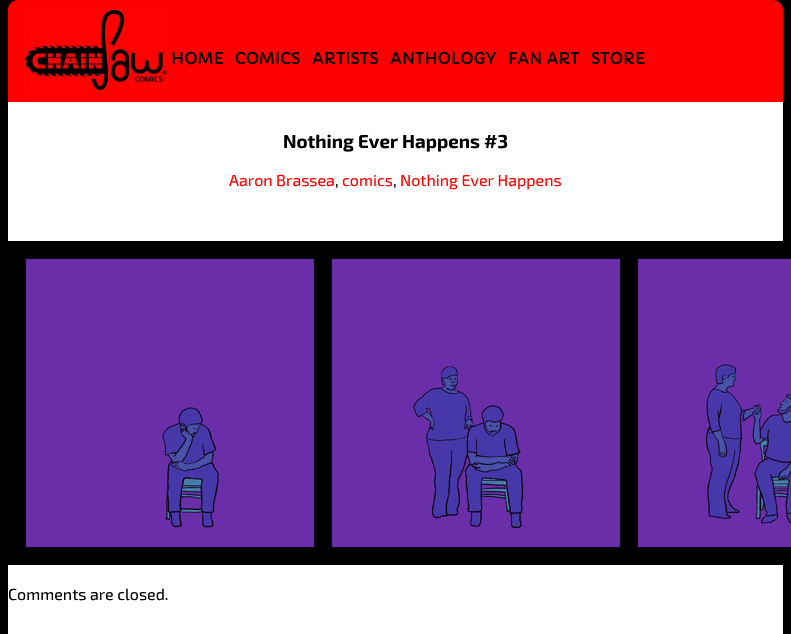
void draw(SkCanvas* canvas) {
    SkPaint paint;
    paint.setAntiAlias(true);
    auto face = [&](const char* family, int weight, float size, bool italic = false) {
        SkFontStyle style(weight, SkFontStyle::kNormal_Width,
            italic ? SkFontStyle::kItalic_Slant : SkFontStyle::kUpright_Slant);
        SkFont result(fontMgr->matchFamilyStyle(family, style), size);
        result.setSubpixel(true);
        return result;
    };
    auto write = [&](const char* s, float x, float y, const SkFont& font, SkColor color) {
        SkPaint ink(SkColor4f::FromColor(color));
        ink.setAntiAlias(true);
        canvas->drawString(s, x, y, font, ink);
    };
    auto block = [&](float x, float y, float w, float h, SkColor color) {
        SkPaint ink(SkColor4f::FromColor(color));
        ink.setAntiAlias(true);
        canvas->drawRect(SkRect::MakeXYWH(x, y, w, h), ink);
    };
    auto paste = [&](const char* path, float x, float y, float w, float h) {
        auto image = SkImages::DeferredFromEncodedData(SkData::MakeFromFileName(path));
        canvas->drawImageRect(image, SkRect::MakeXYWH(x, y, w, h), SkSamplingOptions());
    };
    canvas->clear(SK_ColorBLACK);
    block(8, 102, 775, 532, SK_ColorWHITE);
    paint.setColor(SkColorSetRGB(255, 0, 0));
    canvas->drawPath(SkPathBuilder().moveTo(18, 0).lineTo(773, 0).cubicTo(778.5f, 0, 783, 4.5f, 783, 10).lineTo(783, 102).lineTo(8, 102).lineTo(8, 10).cubicTo(8, 4.5f, 12.5f, 0, 18, 0).close().detach(), paint);
    paste("pic1.png", 24, 10, 143, 80);
    auto kFont1 = face("Capriola", 400, 16);
    write("HOME", 171, 64, kFont1, SK_ColorBLACK);
    write("COMICS", 235, 64, kFont1, SK_ColorBLACK);
    write("ARTISTS", 312, 64, kFont1, SK_ColorBLACK);
    write("ANTHOLOGY", 390, 64, kFont1, SK_ColorBLACK);
    write("FAN ART", 508, 64, kFont1, SK_ColorBLACK);
    write("STORE", 591, 64, kFont1, SK_ColorBLACK);
    auto kFont2 = face("Exo 2", 700, 18.75f);
    write("Nothing Ever Happens #3", 283, 148, kFont2, SK_ColorBLACK);
    auto kFont3 = face("Exo 2", 400, 16);
    write("Aaron Brassea", 229, 186, kFont3, SkColorSetRGB(255, 0, 0));
    write(",", 335, 186, kFont3, SK_ColorBLACK);
    write("comics", 342, 186, kFont3, SkColorSetRGB(255, 0, 0));
    write(",", 393, 186, kFont3, SK_ColorBLACK);
    write("Nothing Ever Happens", 400, 186, kFont3, SkColorSetRGB(255, 0, 0));
    paste("pic2.png", 8, 241, 783, 324);
    write("Comments are closed.", 8, 600, kFont3, SK_ColorBLACK);
}
